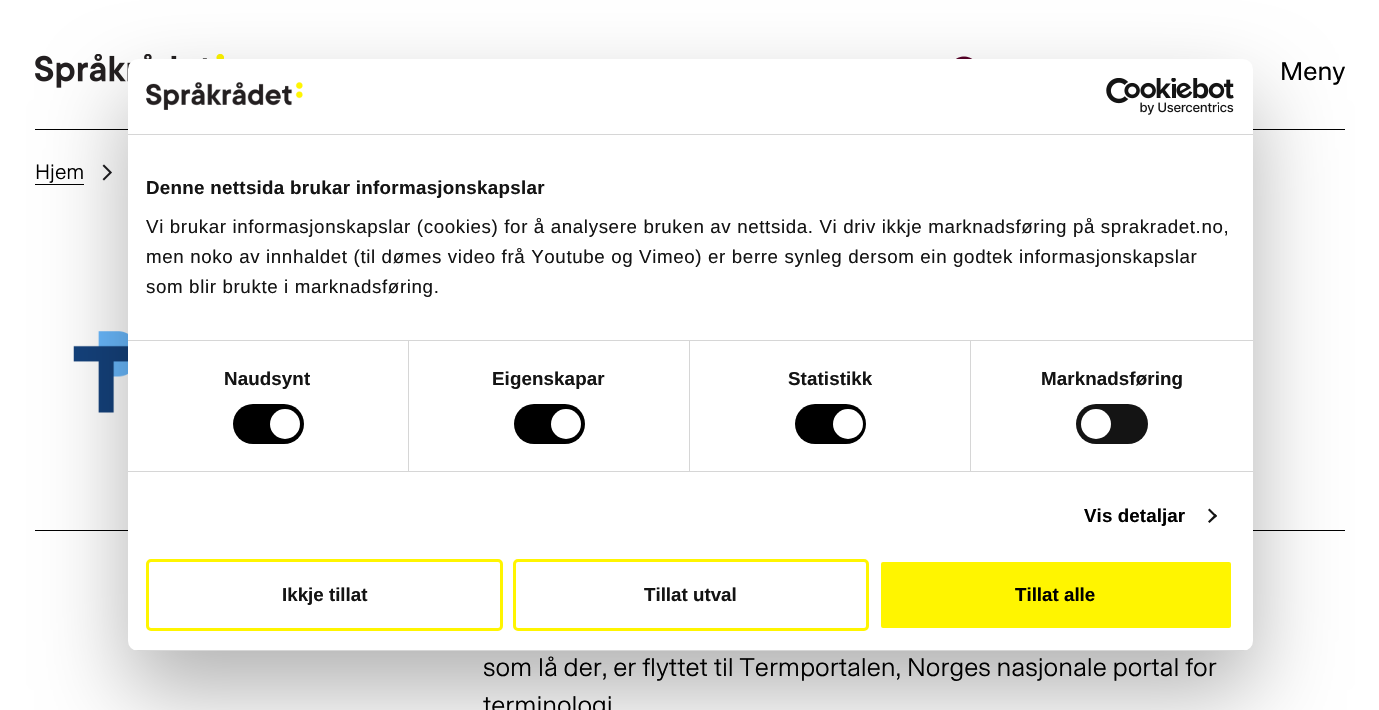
void draw(SkCanvas* canvas) {
    SkPaint paint;
    paint.setAntiAlias(true);
    auto face = [&](const char* family, int weight, float size, bool italic = false) {
        SkFontStyle style(weight, SkFontStyle::kNormal_Width,
            italic ? SkFontStyle::kItalic_Slant : SkFontStyle::kUpright_Slant);
        SkFont result(fontMgr->matchFamilyStyle(family, style), size);
        result.setSubpixel(true);
        return result;
    };
    auto write = [&](const char* s, float x, float y, const SkFont& font, SkColor color) {
        SkPaint ink(SkColor4f::FromColor(color));
        ink.setAntiAlias(true);
        canvas->drawString(s, x, y, font, ink);
    };
    auto writeSpaced = [&](const char* s, float x, float y, const SkFont& font, const SkPaint& ink, float letter, float word) {
        std::vector<SkGlyphID> glyphs(font.countText(s, strlen(s), SkTextEncoding::kUTF8));
        std::vector<float> xs(glyphs.size());
        font.textToGlyphs(s, strlen(s), SkTextEncoding::kUTF8, glyphs);
        font.getXPos(glyphs, xs, x);
        float extra = 0;
        for (size_t i = 0; i < glyphs.size(); i++) {
            xs[i] += extra;
            extra += letter + word * (glyphs[i] == font.unicharToGlyph(' '));
        }
        canvas->drawTextBlob(SkTextBlob::MakeFromPosHGlyphs(glyphs, xs, y, font), 0, 0, ink);
    };
    auto block = [&](float x, float y, float w, float h, SkColor color) {
        SkPaint ink(SkColor4f::FromColor(color));
        ink.setAntiAlias(true);
        canvas->drawRect(SkRect::MakeXYWH(x, y, w, h), ink);
    };
    auto card = [&](float x, float y, float w, float h, float radius, SkColor color) {
        SkPaint ink(SkColor4f::FromColor(color));
        ink.setAntiAlias(true);
        canvas->drawRoundRect(SkRect::MakeXYWH(x, y, w, h), radius, radius, ink);
    };
    auto paste = [&](const char* path, float x, float y, float w, float h) {
        auto image = SkImages::DeferredFromEncodedData(SkData::MakeFromFileName(path));
        canvas->drawImageRect(image, SkRect::MakeXYWH(x, y, w, h), SkSamplingOptions());
    };
    canvas->clear(SK_ColorWHITE);
    block(35, 129, 1310, 1, SK_ColorBLACK);
    paste("pic1.png", 35, 54, 189, 34);
    paste("pic2.png", 956, 56, 17, 3);
    auto kFont1 = face("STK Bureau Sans", 400, 25.85f);
    write("Meny", 1280, 80, kFont1, SK_ColorBLACK);
    auto kFont2 = face("STK Bureau Sans", 300, 21);
    write("Hjem", 35, 179, kFont2, SK_ColorBLACK);
    block(35, 184, 49, 1, SK_ColorBLACK);
    paste("pic3.png", 102, 164, 10, 17);
    paste("pic4.png", 73, 331, 55, 82);
    block(35, 530, 1310, 1, SK_ColorBLACK);
    auto kFont3 = face("STK Bureau Sans", 300, 25.85f);
    write("som lå der, er flyttet til Termportalen, Norges nasjonale portal for", 483, 676, kFont3, SK_ColorBLACK);
    write("terminologi", 483, 714, kFont3, SK_ColorBLACK);
    paint.setColor(SkColorSetARGB(77, 0, 0, 0));
    paint.setMaskFilter(SkMaskFilter::MakeBlur(kNormal_SkBlurStyle, 42.5f));
    canvas->drawRoundRect(SkRect::MakeXYWH(128, 99, 1125, 592), 10, 10, paint);
    paint.setMaskFilter(nullptr);
    card(128, 59, 1125, 592, 10, SK_ColorWHITE);
    block(128, 134, 1125, 1, SkColorSetRGB(214, 214, 214));
    paste("pic5.png", 146, 82, 157, 28);
    paste("pic6.png", 1106, 78, 128, 37);
    block(128, 340, 1125, 1, SkColorSetRGB(214, 214, 214));
    auto kFont4 = face("Liberation Sans", 700, 18.75f);
    paint.setColor(SkColorSetRGB(20, 20, 20));
    writeSpaced("Denne nettsida brukar informasjonskapslar", 146, 194, kFont4, paint, 0.3f, 0);
    auto kFont5 = face("Liberation Sans", 400, 18.75f);
    writeSpaced("Vi brukar informasjonskapslar (cookies) for å analysere bruken av nettsida. Vi driv ikkje marknadsføring på sprakradet.no,", 146, 233, kFont5, paint, 0.62f, 0);
    writeSpaced("men noko av innhaldet (til dømes video frå Youtube og Vimeo) er berre synleg dersom ein godtek informasjonskapslar", 146, 263, kFont5, paint, 0.62f, 0);
    writeSpaced("som blir brukte i marknadsføring.", 146, 293, kFont5, paint, 0.62f, 0);
    block(128, 471, 1125, 1, SkColorSetRGB(214, 214, 214));
    block(408, 341, 1, 130, SkColorSetRGB(214, 214, 214));
    writeSpaced("Naudsynt", 224, 385, kFont4, paint, 0.1f, 0);
    card(233, 404, 71, 40, 20, SK_ColorBLACK);
    paint.setColor(SK_ColorWHITE);
    canvas->drawCircle(285, 424, 15, paint);
    block(689, 341, 1, 130, SkColorSetRGB(214, 214, 214));
    paint.setColor(SkColorSetRGB(20, 20, 20));
    writeSpaced("Eigenskapar", 492, 385, kFont4, paint, 0.1f, 0);
    card(514, 404, 71, 40, 20, SK_ColorBLACK);
    paint.setColor(SK_ColorWHITE);
    canvas->drawCircle(566, 424, 15, paint);
    block(970, 341, 1, 130, SkColorSetRGB(214, 214, 214));
    paint.setColor(SkColorSetRGB(20, 20, 20));
    writeSpaced("Statistikk", 788, 385, kFont4, paint, 0.1f, 0);
    card(795, 404, 71, 40, 20, SK_ColorBLACK);
    paint.setColor(SK_ColorWHITE);
    canvas->drawCircle(848, 424, 15, paint);
    paint.setColor(SkColorSetRGB(20, 20, 20));
    writeSpaced("Marknadsføring", 1041, 385, kFont4, paint, 0.1f, 0);
    card(1076, 404, 72, 40, 20, SkColorSetRGB(20, 20, 20));
    paint.setColor(SK_ColorWHITE);
    canvas->drawCircle(1096, 424, 15, paint);
    paint.setColor(SK_ColorBLACK);
    writeSpaced("Vis detaljar", 1084, 522, kFont4, paint, 0.1f, 0);
    paint.setColor(SkColorSetRGB(20, 20, 20));
    canvas->drawPath(SkPathBuilder().moveTo(1209.5f, 508.5f).lineTo(1217, 516).lineTo(1215.5f, 517.5f).lineTo(1208, 510).close().detach(), paint);
    canvas->drawPath(SkPathBuilder().moveTo(1215.5f, 514).lineTo(1217, 516).lineTo(1209.5f, 523).lineTo(1208, 521.5f).close().detach(), paint);
    canvas->save();
    canvas->clipPath(SkPathBuilder().moveTo(138, 59).lineTo(1243, 59).cubicTo(1248.5f, 59, 1253, 63.5f, 1253, 69).lineTo(1253, 641).cubicTo(1253, 646.5f, 1248.5f, 651, 1243, 651).lineTo(138, 651).cubicTo(132.5f, 651, 128, 646.5f, 128, 641).lineTo(128, 69).cubicTo(128, 63.5f, 132.5f, 59, 138, 59).close().detach(), true);
    block(128, 650, 1125, 1, SkColorSetRGB(214, 214, 214));
    canvas->restore();
    paint.setStyle(SkPaint::kStroke_Style);
    paint.setStrokeWidth(3);
    paint.setColor(SkColorSetRGB(255, 245, 0));
    canvas->drawRoundRect(SkRect::MakeXYWH(147.5f, 560.5f, 354, 69), 3.5f, 3.5f, paint);
    write("Ikkje tillat", 282, 601, kFont4, SkColorSetRGB(20, 20, 20));
    canvas->drawRoundRect(SkRect::MakeXYWH(514.5f, 560.5f, 353, 69), 3.5f, 3.5f, paint);
    write("Tillat utval", 644, 601, kFont4, SkColorSetRGB(20, 20, 20));
    paint.setStyle(SkPaint::kFill_Style);
    canvas->drawRoundRect(SkRect::MakeXYWH(879.5f, 560.5f, 353, 69), 3.5f, 3.5f, paint);
    paint.setStyle(SkPaint::kStroke_Style);
    paint.setColor(SK_ColorWHITE);
    canvas->drawRoundRect(SkRect::MakeXYWH(879.5f, 560.5f, 353, 69), 3.5f, 3.5f, paint);
    write("Tillat alle", 1015, 601, kFont4, SK_ColorBLACK);
}
